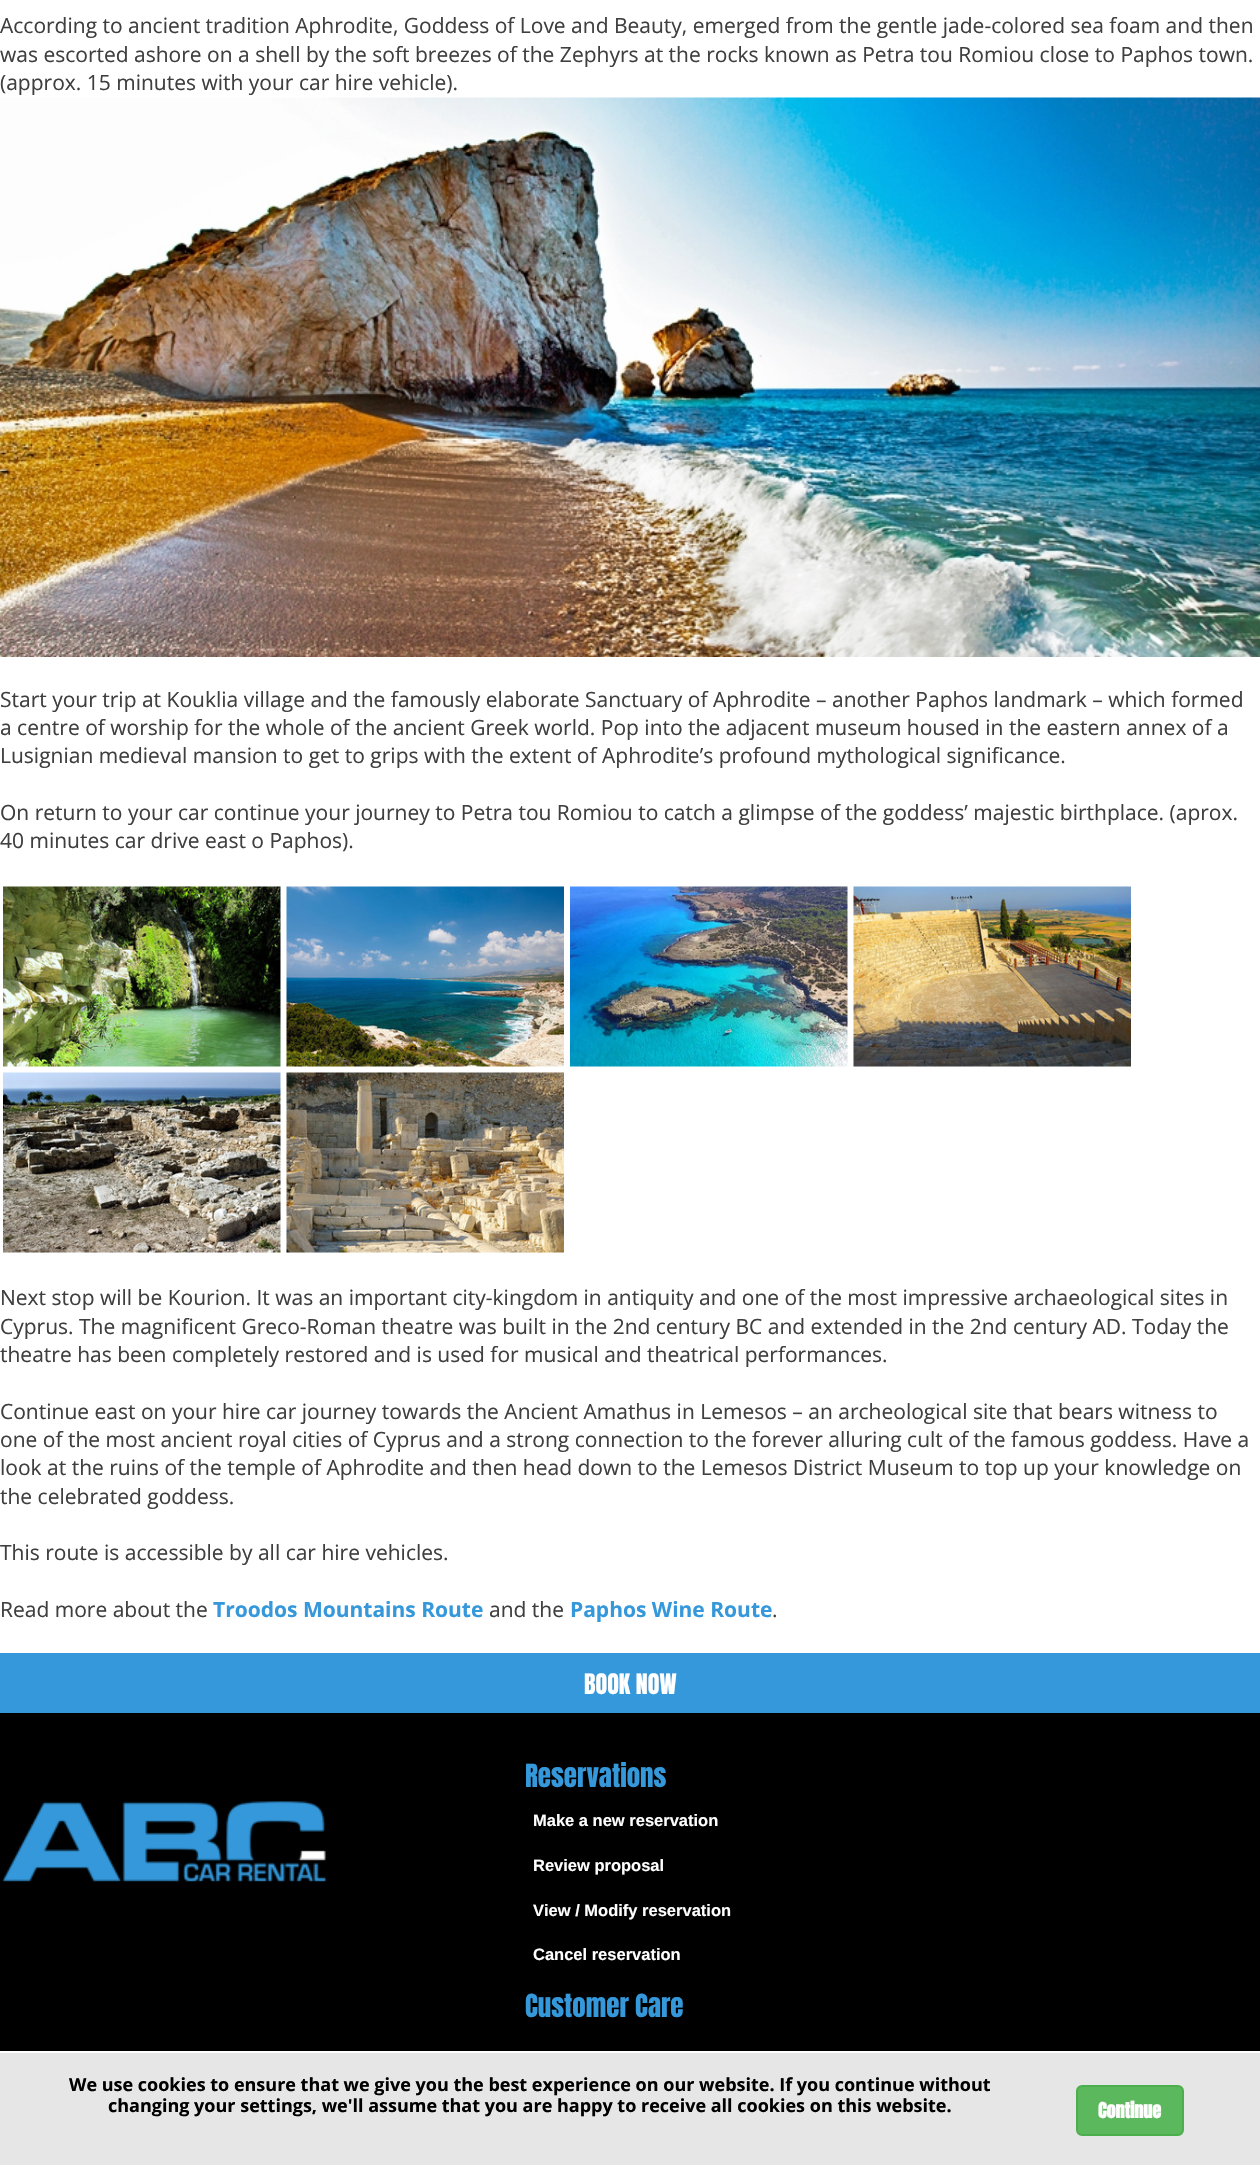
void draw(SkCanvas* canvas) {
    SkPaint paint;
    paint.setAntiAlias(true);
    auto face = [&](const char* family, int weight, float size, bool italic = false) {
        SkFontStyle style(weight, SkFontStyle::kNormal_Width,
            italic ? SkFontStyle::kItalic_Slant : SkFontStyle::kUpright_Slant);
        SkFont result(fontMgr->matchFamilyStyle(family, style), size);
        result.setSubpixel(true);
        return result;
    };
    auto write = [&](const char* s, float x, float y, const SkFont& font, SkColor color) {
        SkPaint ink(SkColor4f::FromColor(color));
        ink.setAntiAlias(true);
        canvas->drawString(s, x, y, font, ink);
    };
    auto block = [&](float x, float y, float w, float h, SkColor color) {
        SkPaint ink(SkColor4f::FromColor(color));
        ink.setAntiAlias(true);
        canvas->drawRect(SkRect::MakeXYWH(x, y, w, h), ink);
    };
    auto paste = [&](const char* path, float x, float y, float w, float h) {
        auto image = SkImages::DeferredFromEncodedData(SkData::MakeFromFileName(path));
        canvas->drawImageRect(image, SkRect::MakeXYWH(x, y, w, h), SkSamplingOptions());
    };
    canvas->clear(SK_ColorWHITE);
    auto kFont1 = face("Open Sans", 400, 21);
    write("According to ancient tradition Aphrodite, Goddess of Love and Beauty, emerged from the gentle jade-colored sea foam and then", 0, 33, kFont1, SkColorSetRGB(63, 63, 63));
    write("was escorted ashore on a shell by the soft breezes of the Zephyrs at the rocks known as Petra tou Romiou close to Paphos town.", 0, 62, kFont1, SkColorSetRGB(63, 63, 63));
    write("(approx. 15 minutes with your car hire vehicle).", 0, 90, kFont1, SkColorSetRGB(63, 63, 63));
    paste("pic1.png", 0, 97, 1260, 560);
    write("Start your trip at Kouklia village and the famously elaborate Sanctuary of Aphrodite – another Paphos landmark – which formed", 0, 707, kFont1, SkColorSetRGB(63, 63, 63));
    write("a centre of worship for the whole of the ancient Greek world. Pop into the adjacent museum housed in the eastern annex of a", 0, 735, kFont1, SkColorSetRGB(63, 63, 63));
    write("Lusignian medieval mansion to get to grips with the extent of Aphrodite’s profound mythological significance.", 0, 763, kFont1, SkColorSetRGB(63, 63, 63));
    write("On return to your car continue your journey to Petra tou Romiou to catch a glimpse of the goddess’ majestic birthplace. (aprox.", 0, 820, kFont1, SkColorSetRGB(63, 63, 63));
    write("40 minutes car drive east o Paphos).", 0, 848, kFont1, SkColorSetRGB(63, 63, 63));
    paste("pic2.png", 3, 886, 278, 181);
    paste("pic3.png", 286, 886, 278, 181);
    paste("pic4.png", 570, 886, 278, 181);
    paste("pic5.png", 853, 886, 278, 181);
    paste("pic6.png", 3, 1072, 278, 181);
    paste("pic7.png", 286, 1072, 278, 181);
    write("Next stop will be Kourion. It was an important city-kingdom in antiquity and one of the most impressive archaeological sites in", 0, 1305, kFont1, SkColorSetRGB(63, 63, 63));
    write("Cyprus. The magnificent Greco-Roman theatre was built in the 2nd century BC and extended in the 2nd century AD. Today the", 0, 1334, kFont1, SkColorSetRGB(63, 63, 63));
    write("theatre has been completely restored and is used for musical and theatrical performances.", 0, 1362, kFont1, SkColorSetRGB(63, 63, 63));
    write("Continue east on your hire car journey towards the Ancient Amathus in Lemesos – an archeological site that bears witness to", 0, 1419, kFont1, SkColorSetRGB(63, 63, 63));
    write("one of the most ancient royal cities of Cyprus and a strong connection to the forever alluring cult of the famous goddess. Have a", 0, 1447, kFont1, SkColorSetRGB(63, 63, 63));
    write("look at the ruins of the temple of Aphrodite and then head down to the Lemesos District Museum to top up your knowledge on", 0, 1475, kFont1, SkColorSetRGB(63, 63, 63));
    write("the celebrated goddess.", 0, 1504, kFont1, SkColorSetRGB(63, 63, 63));
    write("This route is accessible by all car hire vehicles.", 0, 1560, kFont1, SkColorSetRGB(63, 63, 63));
    write("Read more about the", 0, 1617, kFont1, SkColorSetRGB(63, 63, 63));
    auto kFont2 = face("Open Sans", 700, 21);
    write("Troodos Mountains Route", 213, 1617, kFont2, SkColorSetRGB(52, 152, 219));
    write("and the", 489, 1617, kFont1, SkColorSetRGB(63, 63, 63));
    write("Paphos Wine Route", 570, 1617, kFont2, SkColorSetRGB(52, 152, 219));
    write(".", 772, 1617, kFont1, SkColorSetRGB(63, 63, 63));
    block(0, 1713, 1260, 452, SK_ColorBLACK);
    block(0, 1653, 1260, 60, SkColorSetRGB(52, 152, 219));
    auto kFont3 = face("Anton", 400, 24);
    write("BOOK NOW", 584, 1694, kFont3, SK_ColorWHITE);
    paste("pic8.png", 2, 1801, 324, 81);
    auto kFont4 = face("Anton", 400, 27);
    write("Reservations", 525, 1787, kFont4, SkColorSetRGB(52, 152, 219));
    auto kFont5 = face("Liberation Sans", 700, 16.5f);
    write("Make a new reservation", 533, 1826, kFont5, SK_ColorWHITE);
    write("Review proposal", 533, 1871, kFont5, SK_ColorWHITE);
    write("View / Modify reservation", 533, 1916, kFont5, SK_ColorWHITE);
    write("Cancel reservation", 533, 1960, kFont5, SK_ColorWHITE);
    write("Customer Care", 525, 2017, kFont4, SkColorSetRGB(52, 152, 219));
    block(0, 2053, 1260, 112, SkColorSetARGB(230, 255, 255, 255));
    block(0, 2051, 1260, 2, SK_ColorWHITE);
    auto kFont6 = face("Open Sans", 700, 18);
    write("We use cookies to ensure that we give you the best experience on our website. If you continue without", 69, 2091, kFont6, SK_ColorBLACK);
    write("changing your settings, we'll assume that you are happy to receive all cookies on this website.", 108, 2112, kFont6, SK_ColorBLACK);
    paint.setColor(SkColorSetRGB(92, 184, 92));
    canvas->drawRoundRect(SkRect::MakeXYWH(1077, 2086, 106, 49), 5, 5, paint);
    paint.setStyle(SkPaint::kStroke_Style);
    paint.setStrokeWidth(2);
    paint.setColor(SkColorSetRGB(76, 174, 76));
    canvas->drawRoundRect(SkRect::MakeXYWH(1077, 2086, 106, 49), 5, 5, paint);
    auto kFont7 = face("Anton", 700, 18);
    write("Continue", 1098, 2118, kFont7, SK_ColorWHITE);
}
